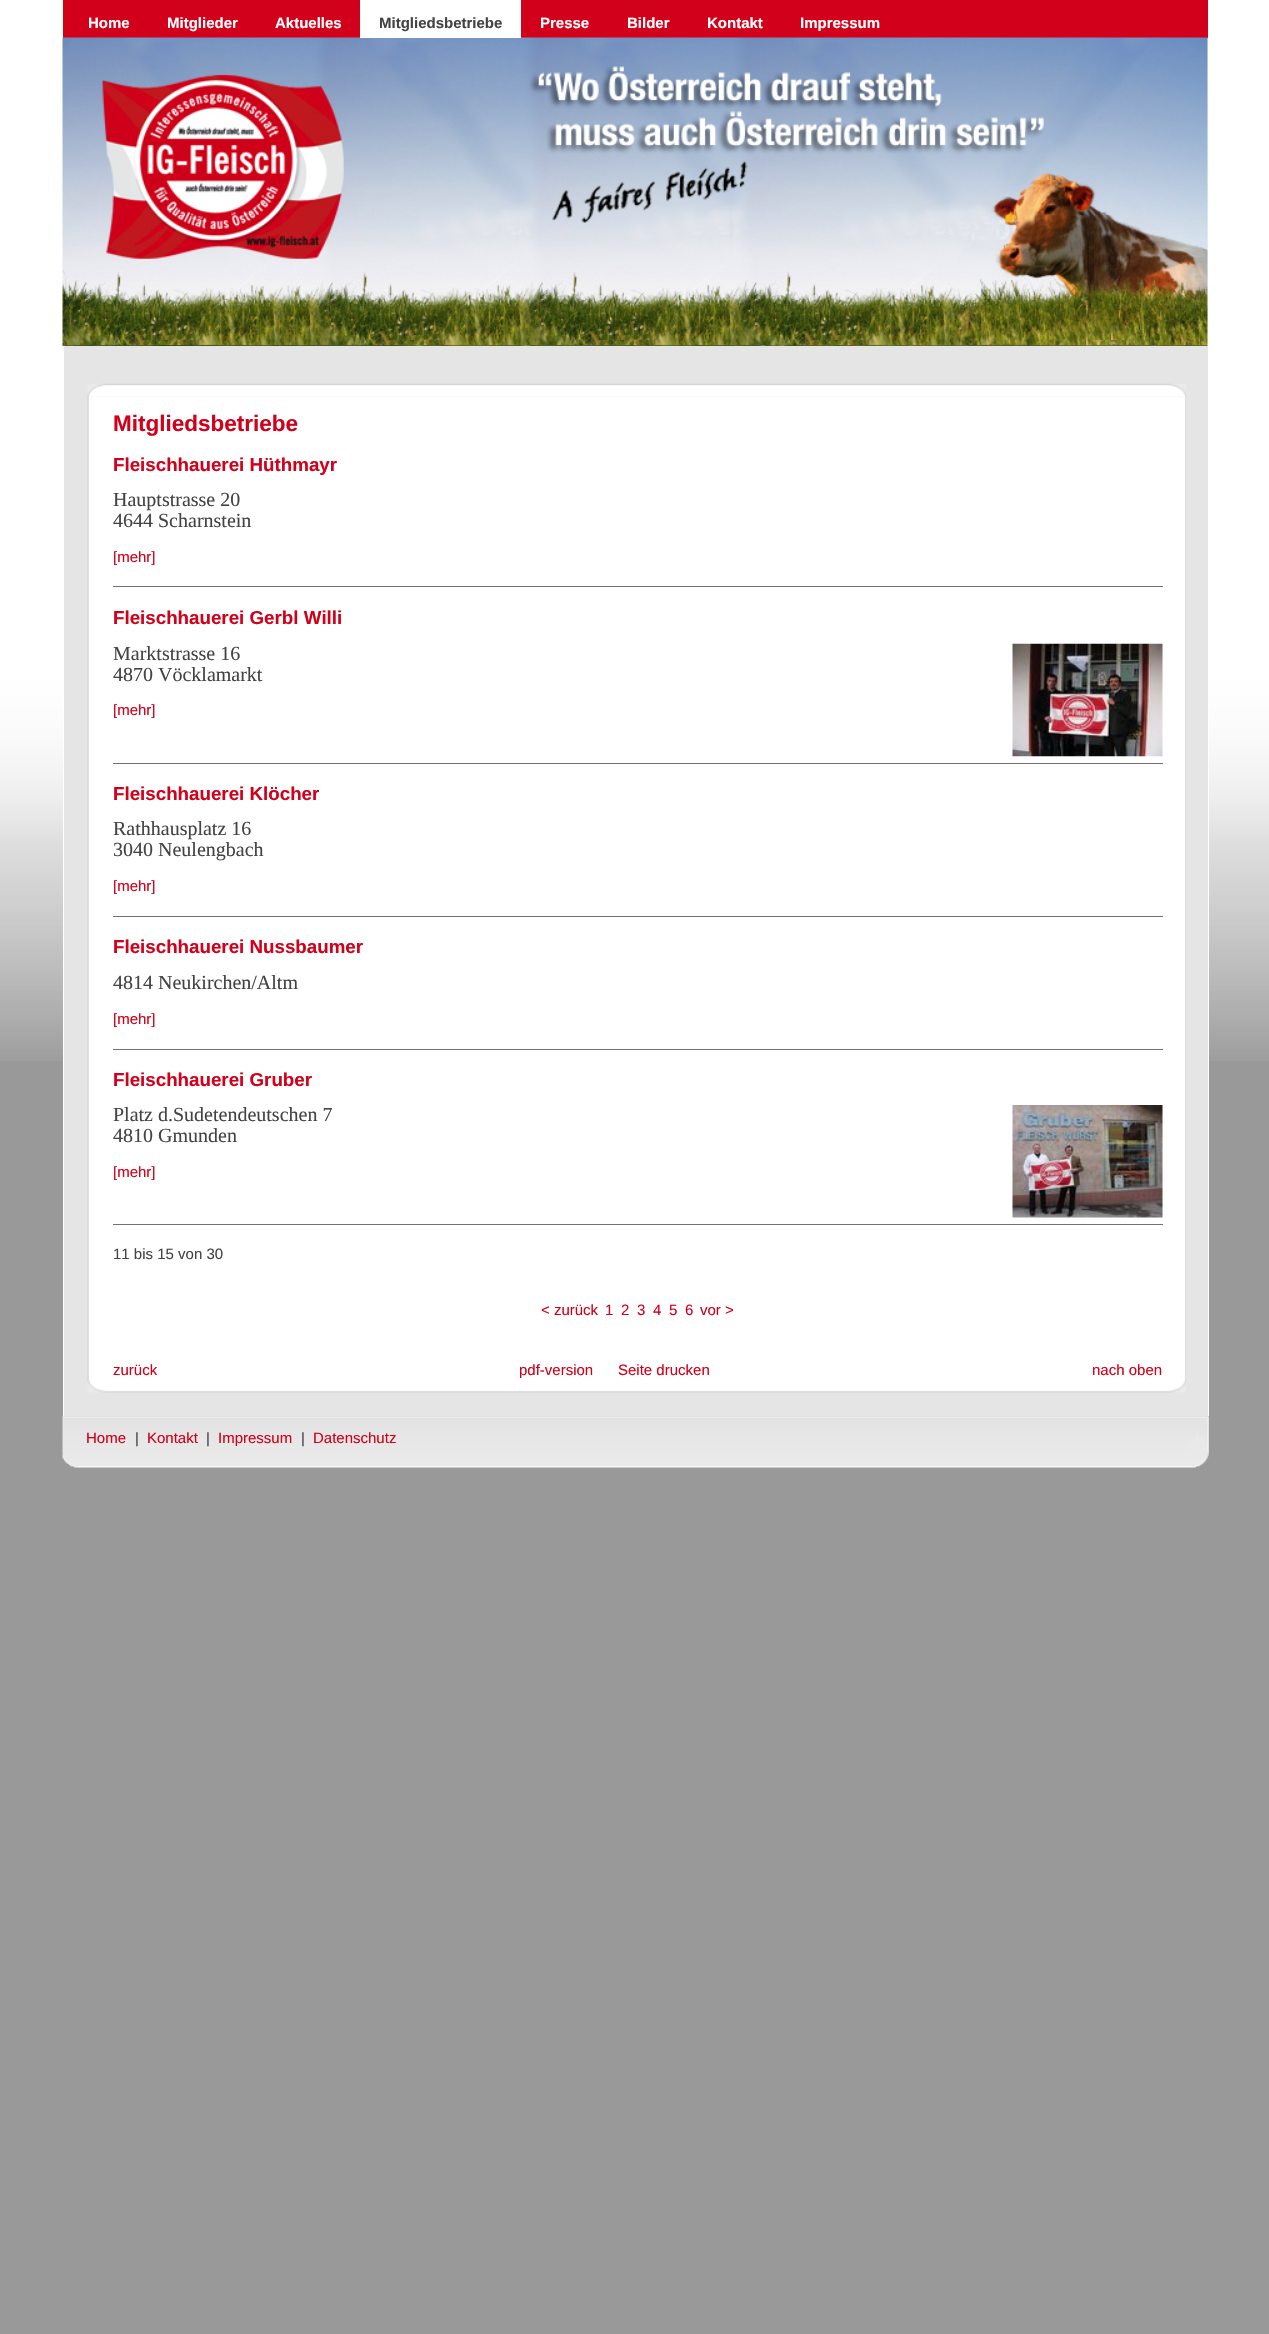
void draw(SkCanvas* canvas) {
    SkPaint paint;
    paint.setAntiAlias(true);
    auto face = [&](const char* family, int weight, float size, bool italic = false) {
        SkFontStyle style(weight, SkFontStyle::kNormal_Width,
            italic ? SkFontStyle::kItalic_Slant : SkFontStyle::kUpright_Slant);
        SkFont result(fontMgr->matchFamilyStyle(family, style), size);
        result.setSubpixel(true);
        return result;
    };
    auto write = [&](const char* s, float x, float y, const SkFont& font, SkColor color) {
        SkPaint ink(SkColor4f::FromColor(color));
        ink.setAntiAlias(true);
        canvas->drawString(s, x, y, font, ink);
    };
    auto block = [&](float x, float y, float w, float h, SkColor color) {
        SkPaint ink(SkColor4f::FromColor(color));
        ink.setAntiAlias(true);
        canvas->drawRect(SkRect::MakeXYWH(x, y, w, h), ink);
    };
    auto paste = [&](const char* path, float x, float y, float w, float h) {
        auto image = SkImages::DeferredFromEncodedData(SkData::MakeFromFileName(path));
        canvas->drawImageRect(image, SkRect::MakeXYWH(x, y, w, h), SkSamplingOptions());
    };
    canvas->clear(SkColorSetRGB(153, 153, 153));
    paste("pic1.png", 0, 0, 1269, 1061);
    block(63, 0, 1145, 38, SkColorSetRGB(210, 0, 26));
    auto kFont1 = face("Liberation Sans", 700, 15);
    write("Home", 88, 28, kFont1, SK_ColorWHITE);
    write("Mitglieder", 167, 28, kFont1, SK_ColorWHITE);
    write("Aktuelles", 275, 28, kFont1, SK_ColorWHITE);
    block(1207, 38, 1, 308, SkColorSetRGB(238, 244, 244));
    paste("pic2.png", 62, 37, 1146, 310);
    block(360, 0, 161, 38, SK_ColorWHITE);
    write("Mitgliedsbetriebe", 379, 28, kFont1, SkColorSetRGB(67, 67, 67));
    write("Presse", 540, 28, kFont1, SK_ColorWHITE);
    write("Bilder", 627, 28, kFont1, SK_ColorWHITE);
    write("Kontakt", 707, 28, kFont1, SK_ColorWHITE);
    write("Impressum", 800, 28, kFont1, SK_ColorWHITE);
    block(64, 346, 1144, 1070, SkColorSetRGB(229, 229, 229));
    block(1208, 709, 1, 707, SK_ColorWHITE);
    block(63, 346, 1, 1070, SK_ColorWHITE);
    paste("pic3.png", 87, 383, 1100, 14);
    paste("pic4.png", 87, 396, 1099, 984);
    auto kFont2 = face("Liberation Sans", 700, 22.5f);
    write("Mitgliedsbetriebe", 113, 431, kFont2, SkColorSetRGB(210, 0, 26));
    block(113, 586, 1050, 1, SkColorSetRGB(114, 114, 114));
    auto kFont3 = face("Liberation Sans", 700, 18.75f);
    write("Fleischhauerei Hüthmayr", 113, 471, kFont3, SkColorSetRGB(210, 0, 26));
    auto kFont4 = face("Liberation Serif", 400, 20);
    write("Hauptstrasse 20", 113, 506, kFont4, SkColorSetRGB(67, 67, 67));
    write("4644 Scharnstein", 113, 527, kFont4, SkColorSetRGB(67, 67, 67));
    auto kFont5 = face("Liberation Sans", 400, 15);
    write("[mehr]", 113, 562, kFont5, SkColorSetRGB(210, 0, 26));
    block(113, 763, 1050, 1, SkColorSetRGB(114, 114, 114));
    write("Fleischhauerei Gerbl Willi", 113, 624, kFont3, SkColorSetRGB(210, 0, 26));
    write("Marktstrasse 16", 113, 660, kFont4, SkColorSetRGB(67, 67, 67));
    write("4870 Vöcklamarkt", 113, 681, kFont4, SkColorSetRGB(67, 67, 67));
    paste("pic5.png", 1012, 643, 151, 114);
    write("[mehr]", 113, 715, kFont5, SkColorSetRGB(210, 0, 26));
    block(113, 916, 1050, 1, SkColorSetRGB(114, 114, 114));
    write("Fleischhauerei Klöcher", 113, 800, kFont3, SkColorSetRGB(210, 0, 26));
    write("Rathhausplatz 16", 113, 835, kFont4, SkColorSetRGB(67, 67, 67));
    write("3040 Neulengbach", 113, 856, kFont4, SkColorSetRGB(67, 67, 67));
    write("[mehr]", 113, 891, kFont5, SkColorSetRGB(210, 0, 26));
    block(113, 1049, 1050, 1, SkColorSetRGB(114, 114, 114));
    write("Fleischhauerei Nussbaumer", 113, 953, kFont3, SkColorSetRGB(210, 0, 26));
    write("4814 Neukirchen/Altm", 113, 989, kFont4, SkColorSetRGB(67, 67, 67));
    write("[mehr]", 113, 1024, kFont5, SkColorSetRGB(210, 0, 26));
    block(113, 1224, 1050, 1, SkColorSetRGB(114, 114, 114));
    write("Fleischhauerei Gruber", 113, 1086, kFont3, SkColorSetRGB(210, 0, 26));
    write("Platz d.Sudetendeutschen 7", 113, 1121, kFont4, SkColorSetRGB(67, 67, 67));
    write("4810 Gmunden", 113, 1142, kFont4, SkColorSetRGB(67, 67, 67));
    paste("pic6.png", 1012, 1105, 151, 113);
    write("[mehr]", 113, 1177, kFont5, SkColorSetRGB(210, 0, 26));
    write("11 bis 15 von 30", 113, 1259, kFont5, SkColorSetRGB(67, 67, 67));
    write("< zurück", 541, 1315, kFont5, SkColorSetRGB(210, 0, 26));
    write("1", 605, 1315, kFont5, SkColorSetRGB(210, 0, 26));
    write("2", 621, 1315, kFont5, SkColorSetRGB(210, 0, 26));
    write("3", 637, 1315, kFont5, SkColorSetRGB(210, 0, 26));
    write("4", 653, 1315, kFont5, SkColorSetRGB(210, 0, 26));
    write("5", 669, 1315, kFont5, SkColorSetRGB(210, 0, 26));
    write("6", 685, 1315, kFont5, SkColorSetRGB(210, 0, 26));
    write("vor >", 700, 1315, kFont5, SkColorSetRGB(210, 0, 26));
    write("zurück", 113, 1375, kFont5, SkColorSetRGB(210, 0, 26));
    write("pdf-version", 519, 1375, kFont5, SkColorSetRGB(210, 0, 26));
    write("Seite drucken", 618, 1375, kFont5, SkColorSetRGB(210, 0, 26));
    write("nach oben", 1092, 1375, kFont5, SkColorSetRGB(210, 0, 26));
    paste("pic7.png", 87, 1380, 1100, 13);
    paste("pic8.png", 62, 1416, 1147, 52);
    write("Home", 86, 1443, kFont5, SkColorSetRGB(210, 0, 26));
    write("|", 135, 1443, kFont5, SkColorSetRGB(67, 67, 67));
    write("Kontakt", 147, 1443, kFont5, SkColorSetRGB(210, 0, 26));
    write("|", 206, 1443, kFont5, SkColorSetRGB(67, 67, 67));
    write("Impressum", 218, 1443, kFont5, SkColorSetRGB(210, 0, 26));
    write("|", 301, 1443, kFont5, SkColorSetRGB(67, 67, 67));
    write("Datenschutz", 313, 1443, kFont5, SkColorSetRGB(210, 0, 26));
}
